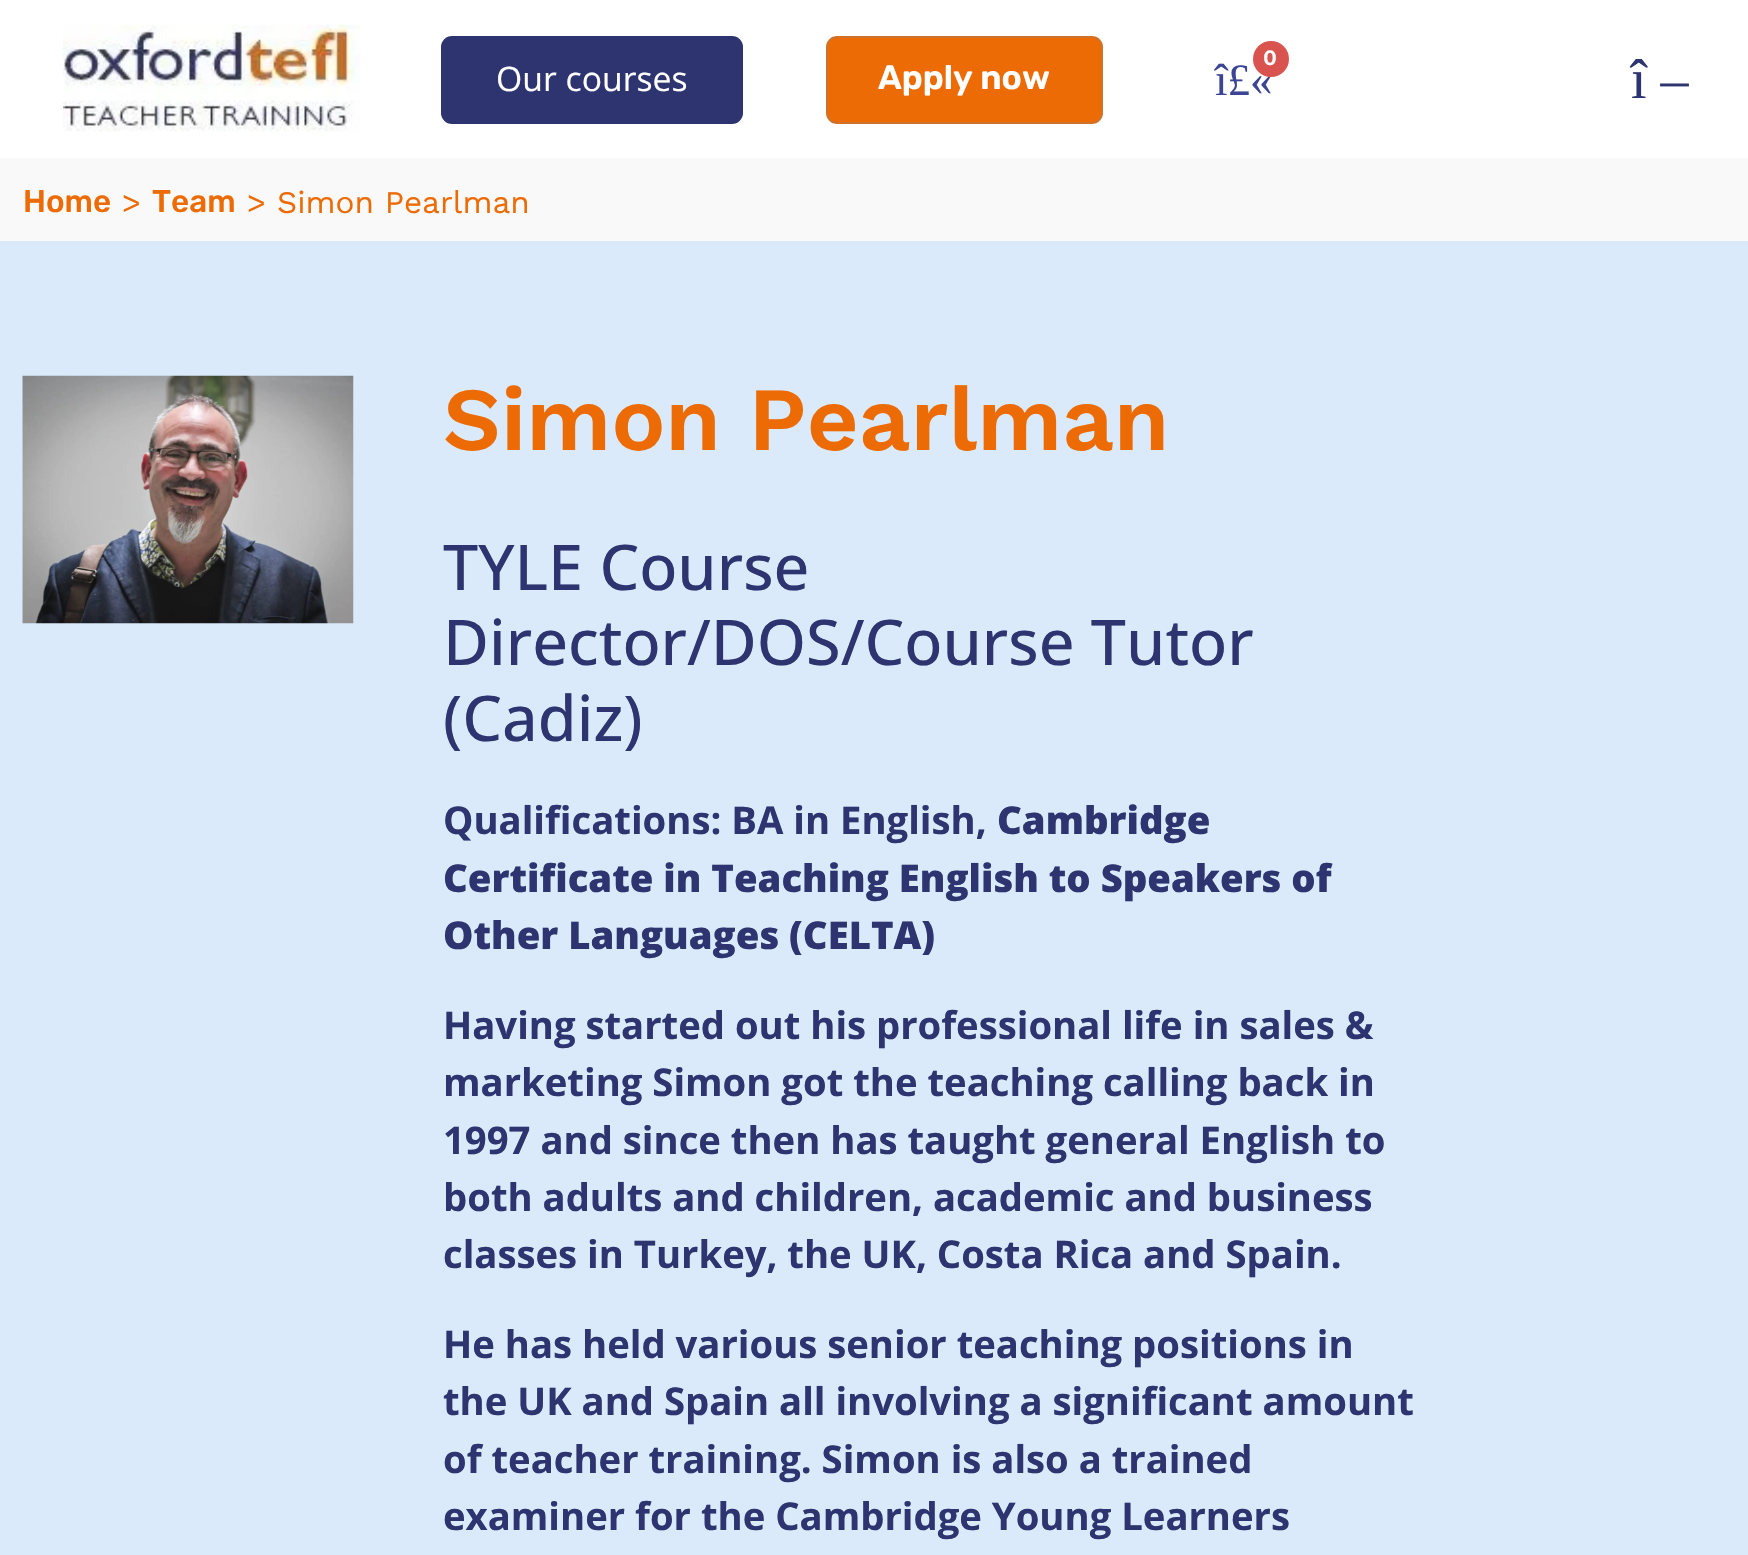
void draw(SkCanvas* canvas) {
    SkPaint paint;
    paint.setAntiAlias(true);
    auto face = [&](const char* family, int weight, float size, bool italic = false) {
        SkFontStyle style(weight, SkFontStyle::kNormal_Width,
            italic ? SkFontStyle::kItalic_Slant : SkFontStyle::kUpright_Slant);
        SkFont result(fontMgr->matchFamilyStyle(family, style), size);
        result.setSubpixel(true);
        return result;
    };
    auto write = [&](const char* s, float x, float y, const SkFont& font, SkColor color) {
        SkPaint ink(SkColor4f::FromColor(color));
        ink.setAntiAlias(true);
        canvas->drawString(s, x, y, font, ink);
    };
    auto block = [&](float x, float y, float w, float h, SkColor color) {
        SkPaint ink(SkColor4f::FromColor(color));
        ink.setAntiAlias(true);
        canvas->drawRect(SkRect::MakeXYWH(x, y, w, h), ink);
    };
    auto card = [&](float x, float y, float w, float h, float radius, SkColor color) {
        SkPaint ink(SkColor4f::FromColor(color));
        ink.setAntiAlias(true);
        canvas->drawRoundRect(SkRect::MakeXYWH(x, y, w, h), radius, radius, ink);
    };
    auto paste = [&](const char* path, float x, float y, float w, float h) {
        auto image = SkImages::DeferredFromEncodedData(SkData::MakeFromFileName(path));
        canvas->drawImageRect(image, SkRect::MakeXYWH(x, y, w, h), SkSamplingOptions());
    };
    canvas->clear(SK_ColorWHITE);
    block(0, 158, 1748, 83, SkColorSetRGB(249, 249, 249));
    paste("pic1.png", 63, 24, 297, 108);
    card(441, 36, 302, 88, 11, SkColorSetRGB(45, 52, 111));
    auto kFont1 = face("Open Sans", 400, 33.75f);
    write("Our courses", 496, 91, kFont1, SK_ColorWHITE);
    paint.setColor(SkColorSetRGB(236, 107, 5));
    canvas->drawRoundRect(SkRect::MakeXYWH(827, 37, 275, 86), 10, 10, paint);
    paint.setStyle(SkPaint::kStroke_Style);
    paint.setStrokeWidth(2);
    paint.setColor(SkColorSetRGB(207, 115, 42));
    canvas->drawRoundRect(SkRect::MakeXYWH(827, 37, 275, 86), 10, 10, paint);
    auto kFont2 = face("Rubik", 600, 33.75f);
    write("Apply now", 878, 89, kFont2, SK_ColorWHITE);
    auto kFont3 = face("Liberation Serif", 400, 45);
    write("î£«", 1215, 95, kFont3, SkColorSetRGB(60, 69, 148));
    paint.setStyle(SkPaint::kFill_Style);
    paint.setColor(SkColorSetRGB(217, 83, 79));
    canvas->drawCircle(1271, 59, 18, paint);
    auto kFont4 = face("Work Sans", 600, 22);
    write("0", 1263, 65, kFont4, SK_ColorWHITE);
    auto kFont5 = face("Liberation Serif", 400, 56);
    write("î –", 1631, 98, kFont5, SkColorSetRGB(45, 52, 111));
    auto kFont6 = face("Rubik", 500, 31.5f);
    write("Home", 23, 212, kFont6, SkColorSetRGB(236, 107, 5));
    auto kFont7 = face("Work Sans", 400, 31.5f);
    write(">", 122, 213, kFont7, SkColorSetRGB(236, 107, 5));
    write("Team", 152, 212, kFont6, SkColorSetRGB(236, 107, 5));
    write(">", 247, 213, kFont7, SkColorSetRGB(236, 107, 5));
    write("Simon Pearlman", 277, 213, kFont7, SkColorSetRGB(236, 107, 5));
    block(0, 241, 1748, 1314, SkColorSetRGB(218, 234, 250));
    paste("pic2.png", 22, 375, 332, 249);
    auto kFont8 = face("Work Sans", 600, 90);
    write("Simon Pearlman", 443, 450, kFont8, SkColorSetRGB(236, 107, 5));
    auto kFont9 = face("Open Sans", 500, 63);
    write("TYLE Course", 443, 590, kFont9, SkColorSetRGB(45, 52, 111));
    write("Director/DOS/Course Tutor", 443, 665, kFont9, SkColorSetRGB(45, 52, 111));
    write("(Cadiz)", 443, 741, kFont9, SkColorSetRGB(45, 52, 111));
    auto kFont10 = face("Open Sans", 700, 38.25f);
    write("Qualifications: BA in English,", 443, 834, kFont10, SkColorSetRGB(45, 52, 111));
    auto kFont11 = face("Open Sans", 800, 38.25f);
    write("Cambridge", 997, 834, kFont11, SkColorSetRGB(45, 52, 111));
    write("Certificate in Teaching English to Speakers of", 443, 892, kFont11, SkColorSetRGB(45, 52, 111));
    write("Other Languages (CELTA)", 443, 949, kFont11, SkColorSetRGB(45, 52, 111));
    write("Having started out his professional life in sales &", 443, 1039, kFont10, SkColorSetRGB(45, 52, 111));
    write("marketing Simon got the teaching calling back in", 443, 1096, kFont10, SkColorSetRGB(45, 52, 111));
    write("1997 and since then has taught general English to", 443, 1154, kFont10, SkColorSetRGB(45, 52, 111));
    write("both adults and children, academic and business", 443, 1211, kFont10, SkColorSetRGB(45, 52, 111));
    write("classes in Turkey, the UK, Costa Rica and Spain.", 443, 1268, kFont10, SkColorSetRGB(45, 52, 111));
    write("He has held various senior teaching positions in", 443, 1358, kFont10, SkColorSetRGB(45, 52, 111));
    write("the UK and Spain all involving a significant amount", 443, 1415, kFont10, SkColorSetRGB(45, 52, 111));
    write("of teacher training. Simon is also a trained", 443, 1473, kFont10, SkColorSetRGB(45, 52, 111));
    write("examiner for the Cambridge Young Learners", 443, 1530, kFont10, SkColorSetRGB(45, 52, 111));
}
